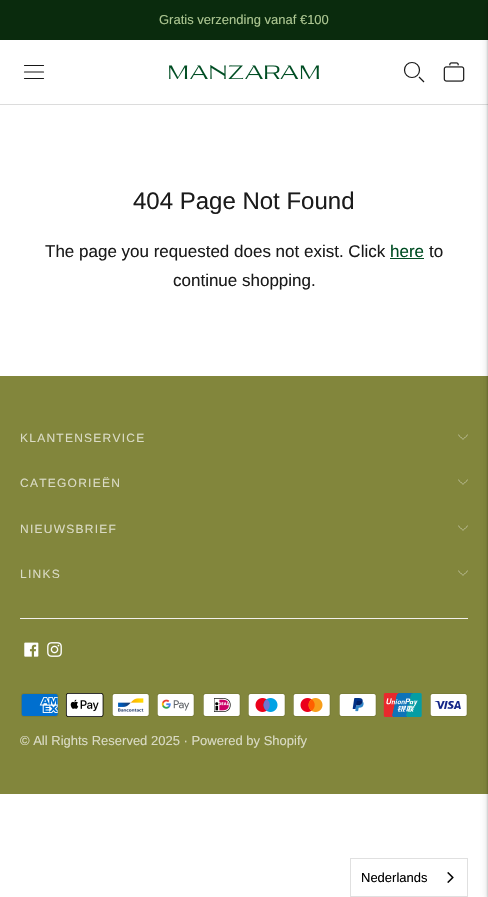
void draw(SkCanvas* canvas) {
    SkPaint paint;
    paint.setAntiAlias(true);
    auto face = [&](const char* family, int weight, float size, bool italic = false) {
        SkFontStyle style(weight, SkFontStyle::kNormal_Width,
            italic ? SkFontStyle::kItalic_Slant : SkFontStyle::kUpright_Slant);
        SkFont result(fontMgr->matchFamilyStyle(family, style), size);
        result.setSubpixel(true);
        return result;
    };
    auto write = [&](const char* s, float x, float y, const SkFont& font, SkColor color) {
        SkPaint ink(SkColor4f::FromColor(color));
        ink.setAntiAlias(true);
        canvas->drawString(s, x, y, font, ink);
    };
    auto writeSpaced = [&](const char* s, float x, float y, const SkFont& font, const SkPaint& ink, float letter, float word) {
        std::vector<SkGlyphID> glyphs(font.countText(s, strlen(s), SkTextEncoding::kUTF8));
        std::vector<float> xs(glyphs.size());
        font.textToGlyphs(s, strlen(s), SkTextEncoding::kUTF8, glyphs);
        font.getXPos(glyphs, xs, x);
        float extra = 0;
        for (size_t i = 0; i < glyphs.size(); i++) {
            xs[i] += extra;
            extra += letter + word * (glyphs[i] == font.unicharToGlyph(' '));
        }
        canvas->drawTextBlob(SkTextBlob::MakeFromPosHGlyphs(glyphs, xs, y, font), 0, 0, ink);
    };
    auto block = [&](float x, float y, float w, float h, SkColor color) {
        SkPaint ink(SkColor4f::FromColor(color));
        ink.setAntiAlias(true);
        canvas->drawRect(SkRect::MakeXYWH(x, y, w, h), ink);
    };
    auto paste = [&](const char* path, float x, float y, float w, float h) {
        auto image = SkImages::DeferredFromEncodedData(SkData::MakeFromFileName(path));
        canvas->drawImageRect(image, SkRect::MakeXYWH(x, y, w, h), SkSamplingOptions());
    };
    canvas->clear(SK_ColorWHITE);
    block(0, 0, 488, 40, SkColorSetRGB(10, 43, 13));
    block(0, 104, 488, 1, SkColorSetRGB(220, 220, 220));
    block(0, 376, 488, 418, SkColorSetRGB(130, 134, 60));
    paint.setColor(SkColorSetARGB(26, 0, 0, 0));
    paint.setMaskFilter(SkMaskFilter::MakeBlur(kNormal_SkBlurStyle, 3));
    canvas->drawRect(SkRect::MakeXYWH(488, 4, 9, 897), paint);
    paint.setMaskFilter(nullptr);
    paint.setColor(SkColorSetARGB(38, 0, 0, 0));
    paint.setMaskFilter(SkMaskFilter::MakeBlur(kNormal_SkBlurStyle, 1));
    canvas->drawRect(SkRect::MakeXYWH(488, 2, 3, 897), paint);
    paint.setMaskFilter(nullptr);
    auto kFont1 = face("Liberation Sans", 400, 13);
    write("Gratis verzending vanaf €100", 159, 24, kFont1, SkColorSetRGB(172, 198, 145));
    paint.setStyle(SkPaint::kStroke_Style);
    paint.setStrokeWidth(1.2f);
    paint.setStrokeCap(SkPaint::kRound_Cap);
    paint.setStrokeJoin(SkPaint::kRound_Join);
    paint.setColor(SkColorSetRGB(23, 23, 23));
    canvas->drawPath(SkPathBuilder().moveTo(24.5f, 72).lineTo(43.5f, 72).moveTo(24.5f, 65.5f).lineTo(43.5f, 65.5f).moveTo(24.5f, 78.5f).lineTo(43.5f, 78.5f).detach(), paint);
    paste("pic1.png", 169, 65, 150, 14);
    paint.setStrokeCap(SkPaint::kButt_Cap);
    paint.setStrokeJoin(SkPaint::kMiter_Join);
    canvas->drawCircle(412, 70, 7.5f, paint);
    canvas->drawPath(SkPathBuilder().moveTo(419, 77).lineTo(424, 82).detach(), paint);
    paste("pic2.png", 443, 62, 22, 20);
    paint.setStyle(SkPaint::kFill_Style);
    paint.setColor(SkColorSetARGB(26, 0, 0, 0));
    paint.setMaskFilter(SkMaskFilter::MakeBlur(kNormal_SkBlurStyle, 3));
    canvas->drawRect(SkRect::MakeXYWH(488, 4, 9, 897), paint);
    paint.setMaskFilter(nullptr);
    paint.setColor(SkColorSetARGB(38, 0, 0, 0));
    paint.setMaskFilter(SkMaskFilter::MakeBlur(kNormal_SkBlurStyle, 1));
    canvas->drawRect(SkRect::MakeXYWH(488, 2, 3, 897), paint);
    paint.setMaskFilter(nullptr);
    auto kFont2 = face("Liberation Sans", 400, 24);
    write("404 Page Not Found", 133, 209, kFont2, SkColorSetRGB(27, 27, 27));
    auto kFont3 = face("Liberation Sans", 400, 17);
    write("The page you requested does not exist. Click", 45, 257, kFont3, SkColorSetRGB(27, 27, 27));
    write("here", 390, 257, kFont3, SkColorSetRGB(0, 77, 35));
    block(390, 258, 34, 1, SkColorSetRGB(0, 77, 35));
    write("to", 429, 257, kFont3, SkColorSetRGB(27, 27, 27));
    write("continue shopping.", 173, 286, kFont3, SkColorSetRGB(27, 27, 27));
    auto kFont4 = face("Liberation Sans", 400, 12);
    paint.setColor(SkColorSetRGB(218, 219, 197));
    writeSpaced("KLANTENSERVICE", 20, 442, kFont4, paint, 1.25f, 0);
    paint.setStyle(SkPaint::kStroke_Style);
    paint.setStrokeWidth(1);
    paint.setStrokeCap(SkPaint::kRound_Cap);
    paint.setStrokeJoin(SkPaint::kRound_Join);
    paint.setColor(SkColorSetRGB(192, 194, 156));
    canvas->drawPath(SkPathBuilder().moveTo(458.5f, 435).cubicTo(464.5f, 440.5f, 461.5f, 440.5f, 467.5f, 435).moveTo(458.5f, 480).cubicTo(464.5f, 485.5f, 461.5f, 485.5f, 467.5f, 480).detach(), paint);
    paint.setStyle(SkPaint::kFill_Style);
    paint.setColor(SkColorSetRGB(218, 219, 197));
    writeSpaced("CATEGORIEËN", 20, 487, kFont4, paint, 1.25f, 0);
    writeSpaced("NIEUWSBRIEF", 20, 533, kFont4, paint, 1.25f, 0);
    paint.setStyle(SkPaint::kStroke_Style);
    paint.setColor(SkColorSetRGB(192, 194, 156));
    canvas->drawPath(SkPathBuilder().moveTo(458.5f, 526).cubicTo(464.5f, 531.5f, 461.5f, 531.5f, 467.5f, 526).moveTo(458.5f, 571).cubicTo(464.5f, 576.5f, 461.5f, 576.5f, 467.5f, 571).detach(), paint);
    paint.setStyle(SkPaint::kFill_Style);
    paint.setColor(SkColorSetRGB(218, 219, 197));
    writeSpaced("LINKS", 20, 578, kFont4, paint, 1.25f, 0);
    block(20, 618, 448, 1, SkColorSetRGB(242, 240, 235));
    paste("pic3.png", 24, 642, 15, 15);
    paste("pic4.png", 47, 642, 15, 15);
    paste("pic5.png", 21, 693, 38, 24);
    paste("pic6.png", 65, 693, 39, 24);
    paste("pic7.png", 112, 693, 38, 24);
    paste("pic8.png", 157, 693, 38, 24);
    paste("pic9.png", 203, 693, 38, 24);
    paste("pic10.png", 248, 693, 38, 24);
    paste("pic11.png", 293, 693, 38, 24);
    paste("pic12.png", 339, 693, 38, 24);
    paste("pic13.png", 383, 693, 39, 24);
    paste("pic14.png", 430, 693, 38, 24);
    write("© All Rights Reserved 2025 · Powered by Shopify", 20, 745, kFont1, SkColorSetRGB(218, 219, 197));
    paint.setStyle(SkPaint::kStroke_Style);
    paint.setStrokeCap(SkPaint::kButt_Cap);
    paint.setStrokeJoin(SkPaint::kMiter_Join);
    paint.setColor(SkColorSetRGB(224, 224, 224));
    canvas->drawRect(SkRect::MakeXYWH(350.5f, 858.5f, 117, 38), paint);
    write("Nederlands", 361, 882, kFont1, SK_ColorBLACK);
    paste("pic15.png", 447, 872, 7, 11);
}
